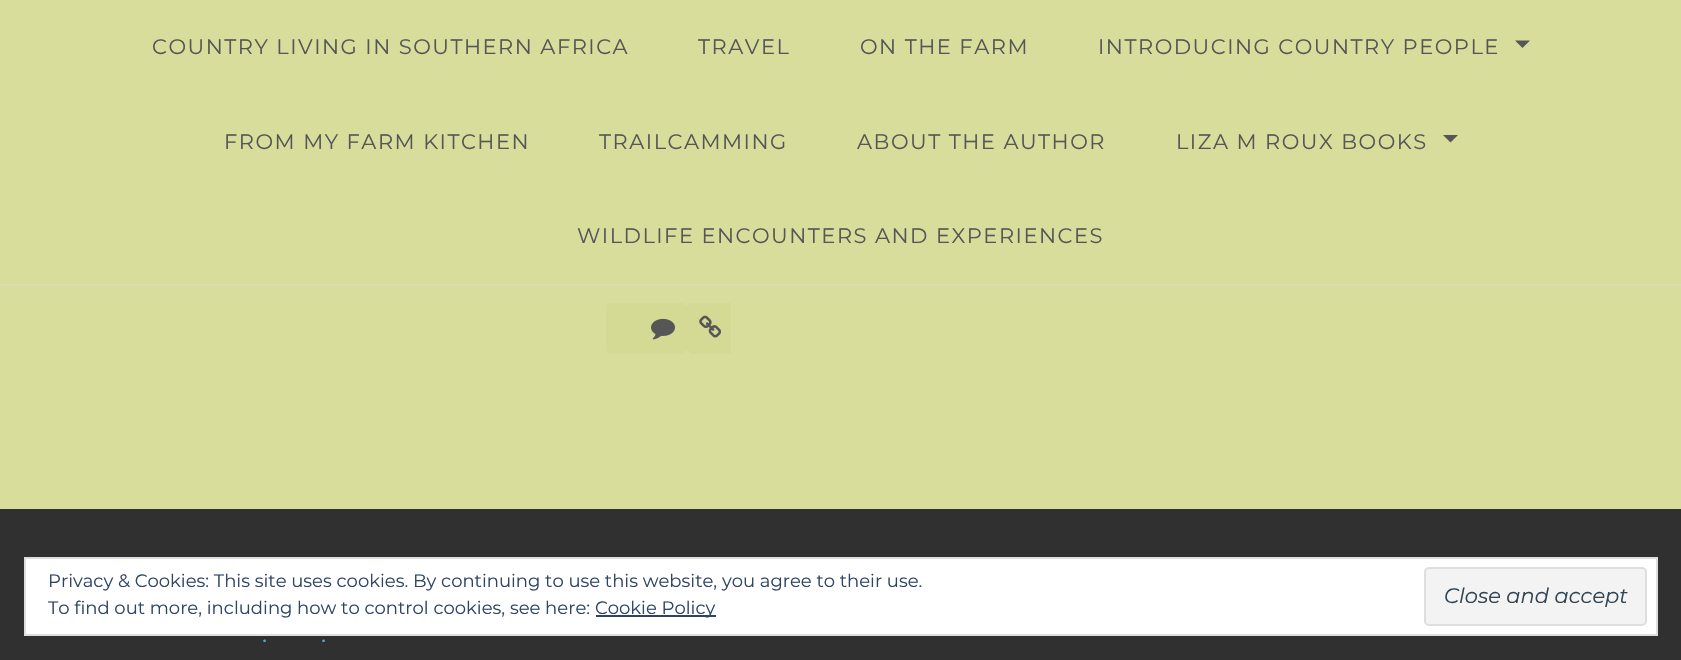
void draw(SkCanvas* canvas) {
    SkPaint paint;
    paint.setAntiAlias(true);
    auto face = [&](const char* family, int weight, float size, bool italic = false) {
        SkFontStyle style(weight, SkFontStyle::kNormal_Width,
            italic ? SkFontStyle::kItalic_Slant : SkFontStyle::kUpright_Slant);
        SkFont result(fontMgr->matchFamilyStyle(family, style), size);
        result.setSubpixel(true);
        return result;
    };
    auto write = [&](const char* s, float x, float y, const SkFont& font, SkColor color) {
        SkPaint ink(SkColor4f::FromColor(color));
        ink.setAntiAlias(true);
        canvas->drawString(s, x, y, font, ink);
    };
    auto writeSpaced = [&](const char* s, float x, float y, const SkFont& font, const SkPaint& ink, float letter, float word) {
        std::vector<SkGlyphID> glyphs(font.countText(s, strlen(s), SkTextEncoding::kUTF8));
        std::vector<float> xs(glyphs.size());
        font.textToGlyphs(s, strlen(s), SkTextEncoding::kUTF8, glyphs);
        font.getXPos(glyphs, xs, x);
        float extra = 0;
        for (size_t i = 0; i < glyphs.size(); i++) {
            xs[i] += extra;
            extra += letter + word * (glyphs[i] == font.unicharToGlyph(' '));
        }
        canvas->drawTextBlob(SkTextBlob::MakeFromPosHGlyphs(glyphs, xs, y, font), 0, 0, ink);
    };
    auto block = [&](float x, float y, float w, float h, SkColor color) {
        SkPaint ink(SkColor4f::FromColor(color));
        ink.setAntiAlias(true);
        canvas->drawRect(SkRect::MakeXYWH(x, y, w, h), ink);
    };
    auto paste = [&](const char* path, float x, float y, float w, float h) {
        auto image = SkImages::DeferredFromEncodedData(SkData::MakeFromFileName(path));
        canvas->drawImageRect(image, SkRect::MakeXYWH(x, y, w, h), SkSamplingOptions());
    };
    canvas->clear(SkColorSetRGB(216, 221, 156));
    block(0, 284, 1681, 2, SkColorSetRGB(218, 221, 176));
    auto kFont1 = face("Montserrat", 400, 21);
    paint.setColor(SkColorSetRGB(86, 86, 86));
    writeSpaced("COUNTRY LIVING IN SOUTHERN AFRICA", 152, 54, kFont1, paint, 1.5f, 0);
    writeSpaced("TRAVEL", 698, 54, kFont1, paint, 1.5f, 0);
    writeSpaced("ON THE FARM", 860, 54, kFont1, paint, 1.5f, 0);
    writeSpaced("INTRODUCING COUNTRY PEOPLE", 1098, 54, kFont1, paint, 1.5f, 0);
    canvas->drawPath(SkPathBuilder().moveTo(1515, 40.5f).lineTo(1530, 40.5f).lineTo(1522.5f, 48).close().detach(), paint);
    writeSpaced("FROM MY FARM KITCHEN", 224, 149, kFont1, paint, 1.5f, 0);
    writeSpaced("TRAILCAMMING", 599, 149, kFont1, paint, 1.5f, 0);
    writeSpaced("ABOUT THE AUTHOR", 857, 149, kFont1, paint, 1.5f, 0);
    writeSpaced("LIZA M ROUX BOOKS", 1176, 149, kFont1, paint, 1.5f, 0);
    canvas->drawPath(SkPathBuilder().moveTo(1443, 135).lineTo(1458, 135).lineTo(1450.5f, 142.5f).close().detach(), paint);
    writeSpaced("WILDLIFE ENCOUNTERS AND EXPERIENCES", 577, 243, kFont1, paint, 1.5f, 0);
    paint.setColor(SkColorSetRGB(212, 218, 148));
    canvas->drawPath(SkPathBuilder().moveTo(611, 303).lineTo(684, 303).lineTo(684, 354).lineTo(611, 354).cubicTo(608, 354, 606, 352, 606, 349).lineTo(606, 308).cubicTo(606, 305, 608, 303, 611, 303).close().detach(), paint);
    block(684, 305, 6, 46, SkColorSetRGB(212, 218, 148));
    block(690, 303, 41, 51, SkColorSetRGB(212, 218, 148));
    paste("pic1.png", 651, 318, 24, 22);
    paste("pic2.png", 699, 315, 22, 23);
    block(0, 509, 1681, 151, SkColorSetRGB(48, 48, 48));
    auto kFont2 = face("Montserrat", 400, 24, true);
    write(".", 263, 642, kFont2, SkColorSetRGB(84, 170, 216));
    write(".", 322, 642, kFont2, SkColorSetRGB(84, 170, 216));
    paint.setColor(SK_ColorWHITE);
    canvas->drawRect(SkRect::MakeXYWH(25, 558, 1632, 77), paint);
    paint.setStyle(SkPaint::kStroke_Style);
    paint.setStrokeWidth(2);
    paint.setColor(SkColorSetRGB(222, 222, 222));
    canvas->drawRect(SkRect::MakeXYWH(25, 558, 1632, 77), paint);
    auto kFont3 = face("Montserrat", 400, 18);
    write("Privacy & Cookies: This site uses cookies. By continuing to use this website, you agree to their use.", 48, 587, kFont3, SkColorSetRGB(46, 68, 103));
    write("To find out more, including how to control cookies, see here:", 48, 614, kFont3, SkColorSetRGB(46, 68, 103));
    block(596, 615, 120, 2, SkColorSetRGB(46, 68, 103));
    write("Cookie Policy", 595, 614, kFont3, SkColorSetRGB(46, 68, 103));
    paint.setStyle(SkPaint::kFill_Style);
    paint.setColor(SkColorSetRGB(243, 243, 243));
    canvas->drawRoundRect(SkRect::MakeXYWH(1425, 568, 221, 57), 4, 4, paint);
    paint.setStyle(SkPaint::kStroke_Style);
    paint.setColor(SkColorSetRGB(222, 222, 222));
    canvas->drawRoundRect(SkRect::MakeXYWH(1425, 568, 221, 57), 4, 4, paint);
    auto kFont4 = face("Montserrat", 400, 21, true);
    write("Close and accept", 1444, 603, kFont4, SkColorSetRGB(46, 68, 83));
}
